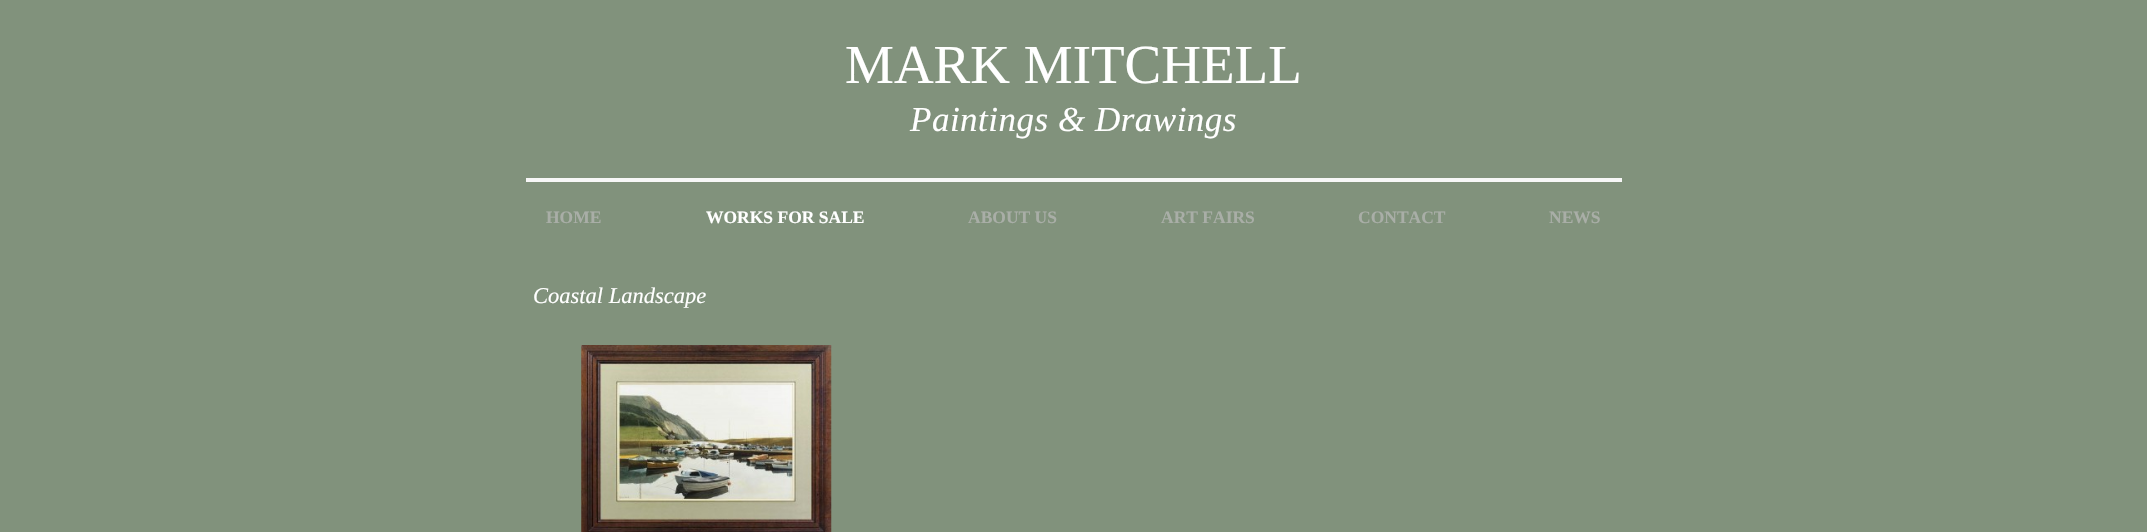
void draw(SkCanvas* canvas) {
    SkPaint paint;
    paint.setAntiAlias(true);
    auto face = [&](const char* family, int weight, float size, bool italic = false) {
        SkFontStyle style(weight, SkFontStyle::kNormal_Width,
            italic ? SkFontStyle::kItalic_Slant : SkFontStyle::kUpright_Slant);
        SkFont result(fontMgr->matchFamilyStyle(family, style), size);
        result.setSubpixel(true);
        return result;
    };
    auto write = [&](const char* s, float x, float y, const SkFont& font, SkColor color) {
        SkPaint ink(SkColor4f::FromColor(color));
        ink.setAntiAlias(true);
        canvas->drawString(s, x, y, font, ink);
    };
    auto writeSpaced = [&](const char* s, float x, float y, const SkFont& font, const SkPaint& ink, float letter, float word) {
        std::vector<SkGlyphID> glyphs(font.countText(s, strlen(s), SkTextEncoding::kUTF8));
        std::vector<float> xs(glyphs.size());
        font.textToGlyphs(s, strlen(s), SkTextEncoding::kUTF8, glyphs);
        font.getXPos(glyphs, xs, x);
        float extra = 0;
        for (size_t i = 0; i < glyphs.size(); i++) {
            xs[i] += extra;
            extra += letter + word * (glyphs[i] == font.unicharToGlyph(' '));
        }
        canvas->drawTextBlob(SkTextBlob::MakeFromPosHGlyphs(glyphs, xs, y, font), 0, 0, ink);
    };
    auto block = [&](float x, float y, float w, float h, SkColor color) {
        SkPaint ink(SkColor4f::FromColor(color));
        ink.setAntiAlias(true);
        canvas->drawRect(SkRect::MakeXYWH(x, y, w, h), ink);
    };
    auto paste = [&](const char* path, float x, float y, float w, float h) {
        auto image = SkImages::DeferredFromEncodedData(SkData::MakeFromFileName(path));
        canvas->drawImageRect(image, SkRect::MakeXYWH(x, y, w, h), SkSamplingOptions());
    };
    canvas->clear(SkColorSetRGB(129, 146, 124));
    auto kFont1 = face("Liberation Serif", 400, 55);
    write("MARK MITCHELL", 845, 83, kFont1, SK_ColorWHITE);
    auto kFont2 = face("Liberation Serif", 400, 35, true);
    paint.setColor(SK_ColorWHITE);
    writeSpaced("Paintings & Drawings", 910, 131, kFont2, paint, 0.5f, 0);
    block(526, 178, 1096, 4, SkColorSetRGB(247, 247, 247));
    auto kFont3 = face("Liberation Serif", 700, 17.5f);
    write("HOME", 546, 223, kFont3, SkColorSetRGB(169, 174, 167));
    write("WORKS FOR SALE", 706, 223, kFont3, SK_ColorWHITE);
    write("ABOUT US", 968, 223, kFont3, SkColorSetRGB(169, 174, 167));
    write("ART FAIRS", 1161, 223, kFont3, SkColorSetRGB(169, 174, 167));
    write("CONTACT", 1358, 223, kFont3, SkColorSetRGB(169, 174, 167));
    write("NEWS", 1549, 223, kFont3, SkColorSetRGB(169, 174, 167));
    auto kFont4 = face("Liberation Serif", 400, 22.5f, true);
    write("Coastal Landscape", 533, 303, kFont4, SK_ColorWHITE);
    paste("pic1.png", 581, 345, 251, 187);
}
